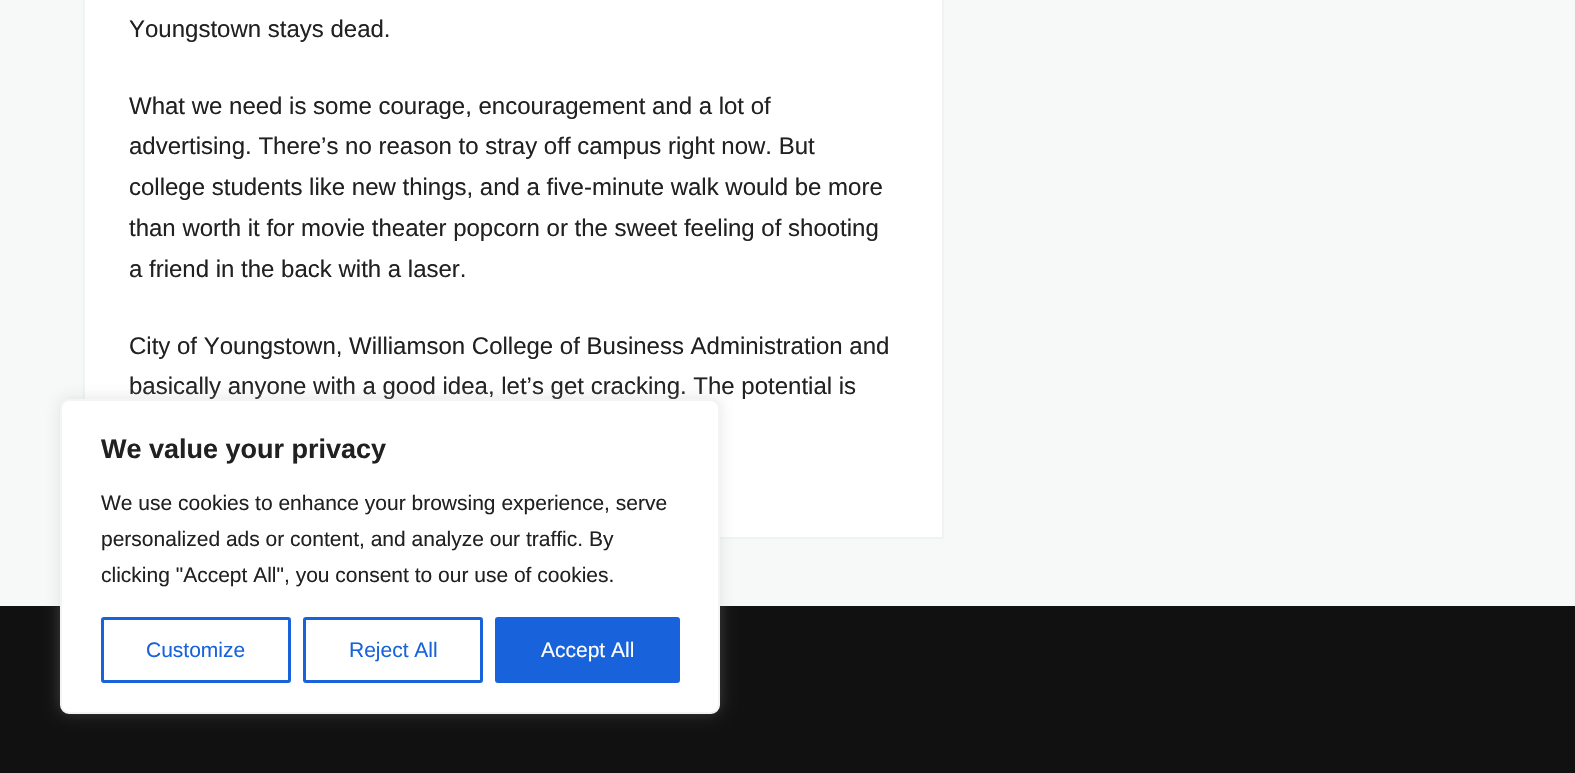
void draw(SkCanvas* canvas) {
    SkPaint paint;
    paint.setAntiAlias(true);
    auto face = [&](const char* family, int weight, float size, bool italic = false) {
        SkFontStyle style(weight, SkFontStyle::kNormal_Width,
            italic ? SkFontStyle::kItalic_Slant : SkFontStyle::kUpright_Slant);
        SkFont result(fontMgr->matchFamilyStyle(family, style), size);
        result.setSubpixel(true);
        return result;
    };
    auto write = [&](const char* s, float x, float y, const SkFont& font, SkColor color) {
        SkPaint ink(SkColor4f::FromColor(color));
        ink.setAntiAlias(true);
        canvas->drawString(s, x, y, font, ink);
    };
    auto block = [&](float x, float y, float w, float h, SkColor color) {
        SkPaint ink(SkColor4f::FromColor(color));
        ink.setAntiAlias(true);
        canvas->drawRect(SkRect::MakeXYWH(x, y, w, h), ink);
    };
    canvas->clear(SkColorSetRGB(247, 249, 249));
    paint.setColor(SK_ColorWHITE);
    canvas->drawRect(SkRect::MakeXYWH(84, -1, 859, 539), paint);
    paint.setStyle(SkPaint::kStroke_Style);
    paint.setStrokeWidth(2);
    paint.setColor(SkColorSetRGB(239, 243, 243));
    canvas->drawRect(SkRect::MakeXYWH(84, -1, 859, 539), paint);
    auto kFont1 = face("Liberation Sans", 400, 24);
    write("Youngstown stays dead.", 129, 37, kFont1, SkColorSetRGB(33, 33, 33));
    write("What we need is some courage, encouragement and a lot of", 129, 114, kFont1, SkColorSetRGB(33, 33, 33));
    write("advertising. There’s no reason to stray off campus right now. But", 129, 154, kFont1, SkColorSetRGB(33, 33, 33));
    write("college students like new things, and a five-minute walk would be more", 129, 195, kFont1, SkColorSetRGB(33, 33, 33));
    write("than worth it for movie theater popcorn or the sweet feeling of shooting", 129, 236, kFont1, SkColorSetRGB(33, 33, 33));
    write("a friend in the back with a laser.", 129, 277, kFont1, SkColorSetRGB(33, 33, 33));
    write("City of Youngstown, Williamson College of Business Administration and", 129, 354, kFont1, SkColorSetRGB(33, 33, 33));
    write("basically anyone with a good idea, let’s get cracking. The potential is", 129, 394, kFont1, SkColorSetRGB(33, 33, 33));
    block(0, 606, 1575, 167, SkColorSetRGB(17, 17, 17));
    paint.setStyle(SkPaint::kFill_Style);
    paint.setColor(SkColorSetARGB(77, 172, 171, 171));
    paint.setMaskFilter(SkMaskFilter::MakeBlur(kNormal_SkBlurStyle, 7.5f));
    canvas->drawRoundRect(SkRect::MakeXYWH(60, 398, 660, 315), 9, 9, paint);
    paint.setMaskFilter(nullptr);
    paint.setColor(SK_ColorWHITE);
    canvas->drawRoundRect(SkRect::MakeXYWH(61, 400, 658, 313), 8, 8, paint);
    paint.setStyle(SkPaint::kStroke_Style);
    paint.setColor(SkColorSetRGB(244, 244, 244));
    canvas->drawRoundRect(SkRect::MakeXYWH(61, 400, 658, 313), 8, 8, paint);
    auto kFont2 = face("Liberation Sans", 700, 27);
    write("We value your privacy", 101, 458, kFont2, SkColorSetRGB(33, 33, 33));
    auto kFont3 = face("Liberation Sans", 400, 21);
    write("We use cookies to enhance your browsing experience, serve", 101, 510, kFont3, SkColorSetRGB(33, 33, 33));
    write("personalized ads or content, and analyze our traffic. By", 101, 546, kFont3, SkColorSetRGB(33, 33, 33));
    write("clicking \"Accept All\", you consent to our use of cookies.", 101, 582, kFont3, SkColorSetRGB(33, 33, 33));
    paint.setStrokeWidth(3);
    paint.setColor(SkColorSetRGB(24, 99, 220));
    canvas->drawRoundRect(SkRect::MakeXYWH(102.5f, 618.5f, 187, 63), 1.5f, 1.5f, paint);
    write("Customize", 146, 657, kFont3, SkColorSetRGB(24, 99, 220));
    canvas->drawRoundRect(SkRect::MakeXYWH(304.5f, 618.5f, 177, 63), 1.5f, 1.5f, paint);
    write("Reject All", 349, 657, kFont3, SkColorSetRGB(24, 99, 220));
    paint.setStyle(SkPaint::kFill_Style);
    canvas->drawRoundRect(SkRect::MakeXYWH(496.5f, 618.5f, 182, 63), 1.5f, 1.5f, paint);
    paint.setStyle(SkPaint::kStroke_Style);
    canvas->drawRoundRect(SkRect::MakeXYWH(496.5f, 618.5f, 182, 63), 1.5f, 1.5f, paint);
    write("Accept All", 541, 657, kFont3, SK_ColorWHITE);
}
